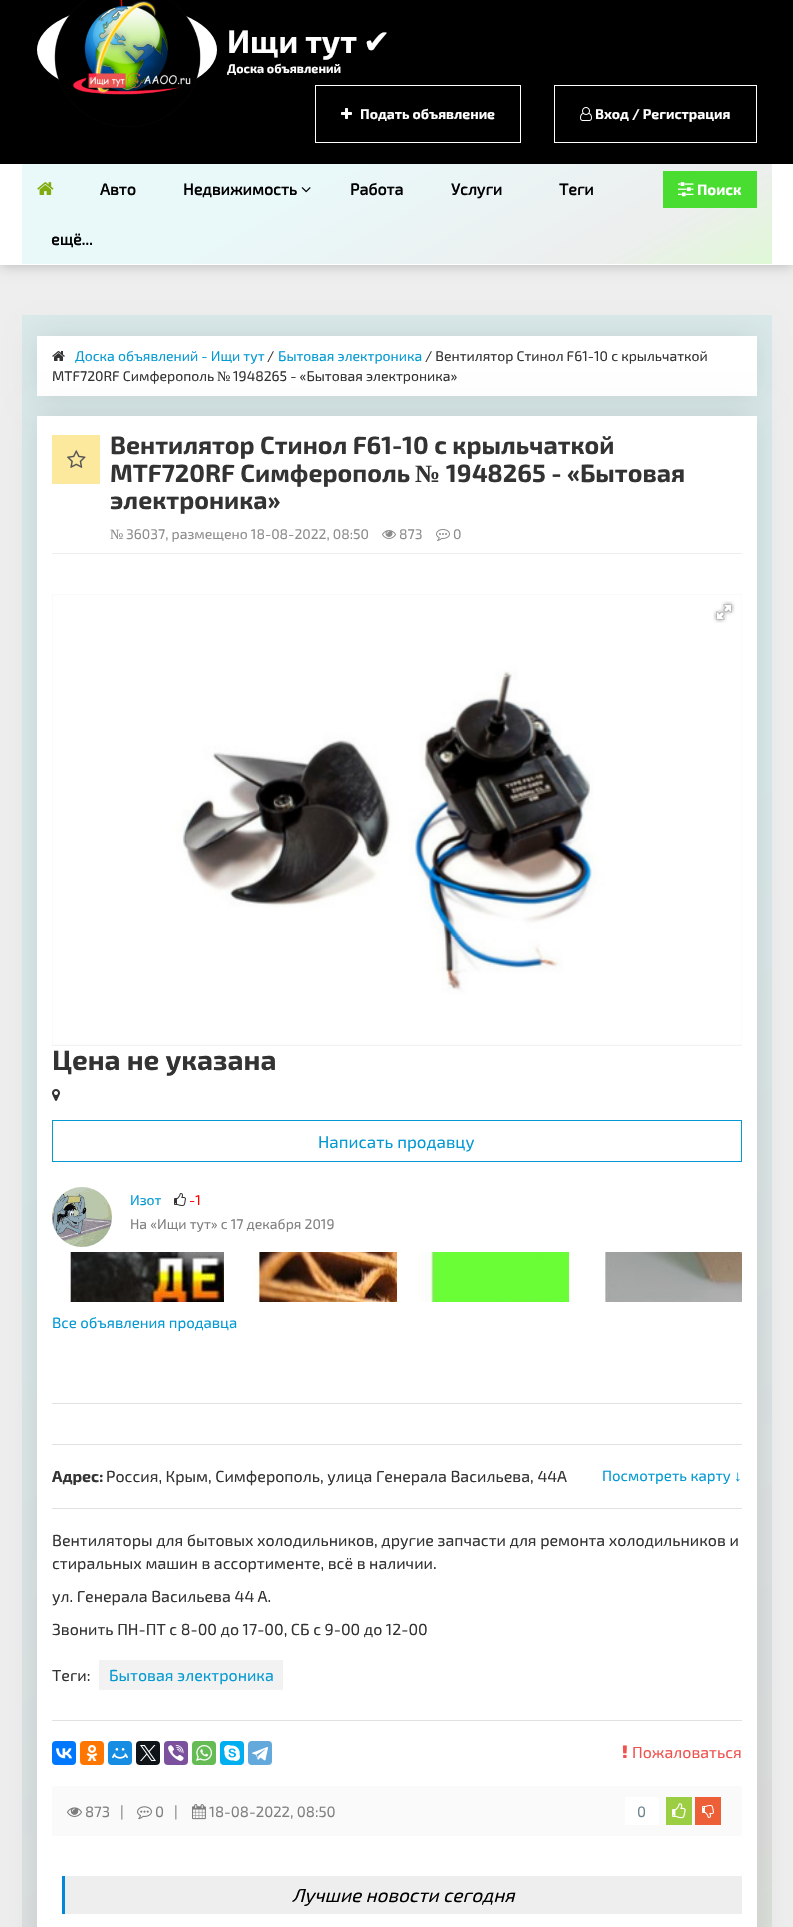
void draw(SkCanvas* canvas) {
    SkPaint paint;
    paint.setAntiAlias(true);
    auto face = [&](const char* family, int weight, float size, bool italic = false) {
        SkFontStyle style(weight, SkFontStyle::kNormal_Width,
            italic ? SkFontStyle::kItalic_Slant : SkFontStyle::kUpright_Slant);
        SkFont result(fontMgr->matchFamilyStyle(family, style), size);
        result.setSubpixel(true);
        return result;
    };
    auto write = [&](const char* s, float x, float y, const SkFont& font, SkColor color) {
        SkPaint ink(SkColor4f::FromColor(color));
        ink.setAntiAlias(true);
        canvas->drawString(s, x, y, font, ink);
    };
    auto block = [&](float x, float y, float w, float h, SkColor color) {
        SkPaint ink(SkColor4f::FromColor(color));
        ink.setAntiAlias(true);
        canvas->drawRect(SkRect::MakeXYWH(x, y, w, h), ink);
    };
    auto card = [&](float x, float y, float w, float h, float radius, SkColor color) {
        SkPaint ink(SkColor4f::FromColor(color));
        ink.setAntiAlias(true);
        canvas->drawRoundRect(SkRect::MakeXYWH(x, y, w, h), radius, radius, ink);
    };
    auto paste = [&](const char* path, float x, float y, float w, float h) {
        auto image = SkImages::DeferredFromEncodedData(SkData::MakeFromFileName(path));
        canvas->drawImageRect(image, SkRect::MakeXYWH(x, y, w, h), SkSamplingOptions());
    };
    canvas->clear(SkColorSetRGB(238, 238, 238));
    block(0, 0, 793, 164, SK_ColorBLACK);
    paint.setColor(SK_ColorWHITE);
    canvas->drawOval(SkRect::MakeXYWH(37, 5, 180, 90), paint);
    paste("pic1.png", 54, 0, 147, 127);
    auto kFont1 = face("Exo 2", 700, 32.5f);
    write("Ищи тут", 227, 53, kFont1, SK_ColorWHITE);
    auto kFont2 = face("DejaVu Sans", 400, 32.5f);
    write("✔", 363, 53, kFont2, SK_ColorWHITE);
    auto kFont3 = face("Exo 2", 700, 12.5f);
    write("Доска объявлений", 227, 73, kFont3, SK_ColorWHITE);
    paint.setStyle(SkPaint::kStroke_Style);
    paint.setStrokeWidth(1);
    canvas->drawRect(SkRect::MakeXYWH(315.5f, 85.5f, 205, 57), paint);
    paste("pic2.png", 341, 108, 11, 11);
    auto kFont4 = face("Exo 2", 700, 14);
    write("Подать объявление", 360, 119, kFont4, SK_ColorWHITE);
    canvas->drawRect(SkRect::MakeXYWH(554.5f, 85.5f, 202, 57), paint);
    paste("pic3.png", 580, 107, 12, 14);
    write("Вход / Регистрация", 595, 119, kFont4, SK_ColorWHITE);
    paint.setStyle(SkPaint::kFill_Style);
    paint.setColor(SkColorSetARGB(64, 0, 0, 0));
    paint.setMaskFilter(SkMaskFilter::MakeBlur(kNormal_SkBlurStyle, 6.5f));
    canvas->drawRect(SkRect::MakeXYWH(0, 164, 793, 101), paint);
    paint.setMaskFilter(nullptr);
    block(0, 164, 793, 101, SK_ColorWHITE);
    {
        const SkColor colors[] = {SkColorSetRGB(223, 248, 214), SkColorSetRGB(237, 238, 238), SkColorSetRGB(233, 248, 249)};
        const float stops[] = {0, 0.2f, 0.65f};
        const SkPoint ends[] = {{506, 411}, {288, 17}};
        paint.setShader(SkGradientShader::MakeLinear(ends, colors, stops, 3, SkTileMode::kClamp));
        paint.setAlpha(255);
    }
    canvas->drawRect(SkRect::MakeXYWH(22, 164, 750, 100), paint);
    paste("pic4.png", 37, 182, 17, 13);
    auto kFont5 = face("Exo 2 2", 700, 16);
    write("Авто", 100, 195, kFont5, SK_ColorBLACK);
    write("Недвижимость", 183, 195, kFont5, SK_ColorBLACK);
    paste("pic5.png", 301, 187, 10, 6);
    write("Работа", 350, 195, kFont5, SK_ColorBLACK);
    write("Услуги", 451, 195, kFont5, SK_ColorBLACK);
    write("Теги", 559, 195, kFont5, SK_ColorBLACK);
    write("ещё...", 51, 245, kFont5, SK_ColorBLACK);
    block(663, 171, 94, 37, SkColorSetRGB(74, 221, 49));
    paste("pic6.png", 678, 182, 16, 15);
    auto kFont6 = face("Exo 2", 700, 15);
    write("Поиск", 697, 195, kFont6, SK_ColorWHITE);
    {
        const SkColor colors[] = {SkColorSetRGB(210, 235, 200), SkColorSetRGB(222, 222, 222), SkColorSetRGB(218, 233, 234)};
        const float stops[] = {0, 0.2f, 0.65f};
        const SkPoint ends[] = {{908, 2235}, {-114, 390}};
        paint.setShader(SkGradientShader::MakeLinear(ends, colors, stops, 3, SkTileMode::kClamp));
        paint.setAlpha(255);
    }
    canvas->drawRect(SkRect::MakeXYWH(22, 315, 750, 1612), paint);
    paint.setShader(nullptr);
    paint.setColor(SkColorSetARGB(26, 0, 0, 0));
    paint.setMaskFilter(SkMaskFilter::MakeBlur(kNormal_SkBlurStyle, 15));
    canvas->drawRect(SkRect::MakeXYWH(37, 336, 720, 60), paint);
    paint.setMaskFilter(nullptr);
    block(37, 336, 720, 60, SK_ColorWHITE);
    paste("pic7.png", 52, 351, 13, 10);
    auto kFont7 = face("Exo 2", 400, 14);
    write("Доска объявлений - Ищи тут", 75, 361, kFont7, SkColorSetRGB(3, 154, 211));
    write("/", 267, 361, kFont7, SkColorSetRGB(51, 51, 51));
    write("Бытовая электроника", 278, 361, kFont7, SkColorSetRGB(3, 154, 211));
    write("/ Вентилятор Стинол F61-10 с крыльчаткой", 425, 361, kFont7, SkColorSetRGB(51, 51, 51));
    write("MTF720RF Симферополь", 52, 381, kFont7, SkColorSetRGB(51, 51, 51));
    auto kFont8 = face("Liberation Serif", 400, 14);
    write("№", 217, 381, kFont8, SkColorSetRGB(51, 51, 51));
    write("1948265 - «Бытовая электроника»", 233, 381, kFont7, SkColorSetRGB(51, 51, 51));
    paint.setMaskFilter(SkMaskFilter::MakeBlur(kNormal_SkBlurStyle, 15));
    canvas->drawRect(SkRect::MakeXYWH(37, 416, 720, 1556), paint);
    paint.setMaskFilter(nullptr);
    block(37, 416, 720, 1511, SK_ColorWHITE);
    block(52, 553, 690, 1, SkColorSetRGB(238, 238, 238));
    block(52, 435, 48, 49, SkColorSetRGB(252, 233, 158));
    paste("pic8.png", 67, 450, 19, 18);
    auto kFont9 = face("Exo 2", 700, 25);
    write("Вентилятор Стинол F61-10 с крыльчаткой", 110, 454, kFont9, SkColorSetRGB(51, 51, 51));
    write("MTF720RF Симферополь", 110, 482, kFont9, SkColorSetRGB(51, 51, 51));
    auto kFont10 = face("Liberation Serif", 700, 25);
    write("№", 415, 482, kFont10, SkColorSetRGB(51, 51, 51));
    write("1948265 - «Бытовая", 446, 482, kFont9, SkColorSetRGB(51, 51, 51));
    write("электроника»", 110, 509, kFont9, SkColorSetRGB(51, 51, 51));
    write("№", 110, 539, kFont8, SkColorSetRGB(140, 140, 140));
    write("36037, размещено 18-08-2022, 08:50", 126, 539, kFont7, SkColorSetRGB(140, 140, 140));
    paste("pic9.png", 382, 530, 14, 9);
    write("873", 399, 539, kFont7, SkColorSetRGB(140, 140, 140));
    paste("pic10.png", 436, 529, 14, 12);
    write("0", 453, 539, kFont7, SkColorSetRGB(140, 140, 140));
    block(52, 594, 690, 452, SkColorSetRGB(238, 238, 238));
    paste("pic11.png", 52, 594, 690, 452);
    paste("pic12.png", 713, 601, 22, 22);
    auto kFont11 = face("Exo 2", 700, 28);
    write("Цена не указана", 52, 1070, kFont11, SkColorSetRGB(51, 51, 51));
    paste("pic13.png", 52, 1089, 8, 12);
    paint.setStyle(SkPaint::kStroke_Style);
    paint.setColor(SkColorSetRGB(3, 154, 211));
    canvas->drawRect(SkRect::MakeXYWH(52.5f, 1120.5f, 689, 41), paint);
    auto kFont12 = face("Exo 2", 400, 17);
    write("Написать продавцу", 318, 1148, kFont12, SkColorSetRGB(3, 154, 211));
    paste("pic14.png", 52, 1187, 60, 60);
    write("Изот", 130, 1205, kFont7, SkColorSetRGB(3, 154, 211));
    paste("pic15.png", 174, 1193, 12, 13);
    write("-1", 189, 1205, kFont7, SkColorSetRGB(255, 0, 0));
    write("На «Ищи тут» с 17 декабря 2019", 130, 1229, kFont7, SkColorSetRGB(128, 128, 128));
    paste("pic16.png", 68, 1252, 156, 50);
    paste("pic17.png", 253, 1252, 144, 50);
    paste("pic18.png", 419, 1252, 150, 50);
    paste("pic19.png", 605, 1252, 137, 50);
    auto kFont13 = face("Exo 2", 400, 15);
    write("Все объявления продавца", 52, 1328, kFont13, SkColorSetRGB(3, 154, 211));
    block(52, 1403, 690, 1, SkColorSetRGB(225, 225, 225));
    block(52, 1444, 690, 1, SkColorSetRGB(225, 225, 225));
    auto kFont14 = face("Exo 2", 700, 16);
    write("Адрес:", 52, 1482, kFont14, SkColorSetRGB(51, 51, 51));
    auto kFont15 = face("Exo 2", 400, 16);
    write("Россия, Крым, Симферополь, улица Генерала Васильева, 44А", 106, 1482, kFont15, SkColorSetRGB(51, 51, 51));
    write("Посмотреть карту", 602, 1481, kFont13, SkColorSetRGB(3, 154, 211));
    auto kFont16 = face("Liberation Serif", 400, 15);
    write("↓", 734, 1481, kFont16, SkColorSetRGB(3, 154, 211));
    block(52, 1508, 690, 1, SkColorSetRGB(225, 225, 225));
    write("Вентиляторы для бытовых холодильников, другие запчасти для ремонта холодильников и", 52, 1546, kFont15, SkColorSetRGB(51, 51, 51));
    write("стиральных машин в ассортименте, всё в наличии.", 52, 1569, kFont15, SkColorSetRGB(51, 51, 51));
    write("ул. Генерала Васильева 44 А.", 52, 1602, kFont15, SkColorSetRGB(51, 51, 51));
    write("Звонить ПН-ПТ с 8-00 до 17-00, СБ с 9-00 до 12-00", 52, 1635, kFont15, SkColorSetRGB(51, 51, 51));
    write("Теги:", 52, 1681, kFont15, SkColorSetRGB(51, 51, 51));
    block(99, 1660, 184, 30, SkColorSetRGB(242, 242, 242));
    write("Бытовая электроника", 109, 1681, kFont15, SkColorSetRGB(3, 154, 211));
    block(52, 1720, 690, 1, SkColorSetRGB(225, 225, 225));
    card(52, 1741, 24, 24, 4, SkColorSetRGB(0, 119, 255));
    paste("pic20.png", 56, 1748, 16, 11);
    card(80, 1741, 24, 24, 4, SkColorSetRGB(255, 119, 0));
    paste("pic21.png", 86, 1745, 12, 16);
    card(108, 1741, 24, 24, 4, SkColorSetRGB(22, 141, 226));
    paste("pic22.png", 112, 1748, 16, 11);
    card(136, 1741, 24, 24, 4, SkColorSetRGB(15, 20, 25));
    paste("pic23.png", 140, 1745, 16, 16);
    card(164, 1741, 24, 24, 4, SkColorSetRGB(123, 81, 157));
    paste("pic24.png", 168, 1745, 16, 16);
    card(192, 1741, 24, 24, 4, SkColorSetRGB(101, 188, 84));
    paste("pic25.png", 196, 1745, 16, 16);
    card(220, 1741, 24, 24, 4, SkColorSetRGB(0, 175, 240));
    paste("pic26.png", 224, 1745, 16, 16);
    card(248, 1741, 24, 24, 4, SkColorSetRGB(100, 169, 220));
    paste("pic27.png", 252, 1747, 16, 14);
    paste("pic28.png", 622, 1745, 5, 13);
    write("Пожаловаться", 632, 1758, kFont15, SkColorSetRGB(239, 83, 80));
    card(52, 1786, 690, 50, 3, SkColorSetRGB(250, 250, 250));
    paste("pic29.png", 67, 1807, 15, 10);
    write("873", 85, 1817, kFont13, SkColorSetRGB(128, 128, 128));
    write("|", 120, 1817, kFont13, SkColorSetRGB(128, 128, 128));
    paste("pic30.png", 137, 1806, 15, 14);
    write("0", 155, 1817, kFont13, SkColorSetRGB(128, 128, 128));
    write("|", 174, 1817, kFont13, SkColorSetRGB(128, 128, 128));
    paste("pic31.png", 192, 1804, 14, 16);
    write("18-08-2022, 08:50", 209, 1817, kFont13, SkColorSetRGB(128, 128, 128));
    block(625, 1797, 34, 28, SK_ColorWHITE);
    write("0", 637, 1817, kFont13, SkColorSetRGB(108, 131, 142));
    block(666, 1797, 26, 28, SkColorSetRGB(156, 206, 67));
    paste("pic32.png", 672, 1803, 14, 16);
    block(695, 1797, 26, 28, SkColorSetRGB(237, 96, 55));
    paste("pic33.png", 702, 1805, 12, 13);
    block(65, 1876, 677, 38, SkColorSetRGB(238, 238, 238));
    block(62, 1876, 3, 38, SkColorSetRGB(0, 137, 217));
    auto kFont17 = face("Exo 2", 400, 19, true);
    write("Лучшие новости сегодня", 292, 1902, kFont17, SK_ColorBLACK);
}
